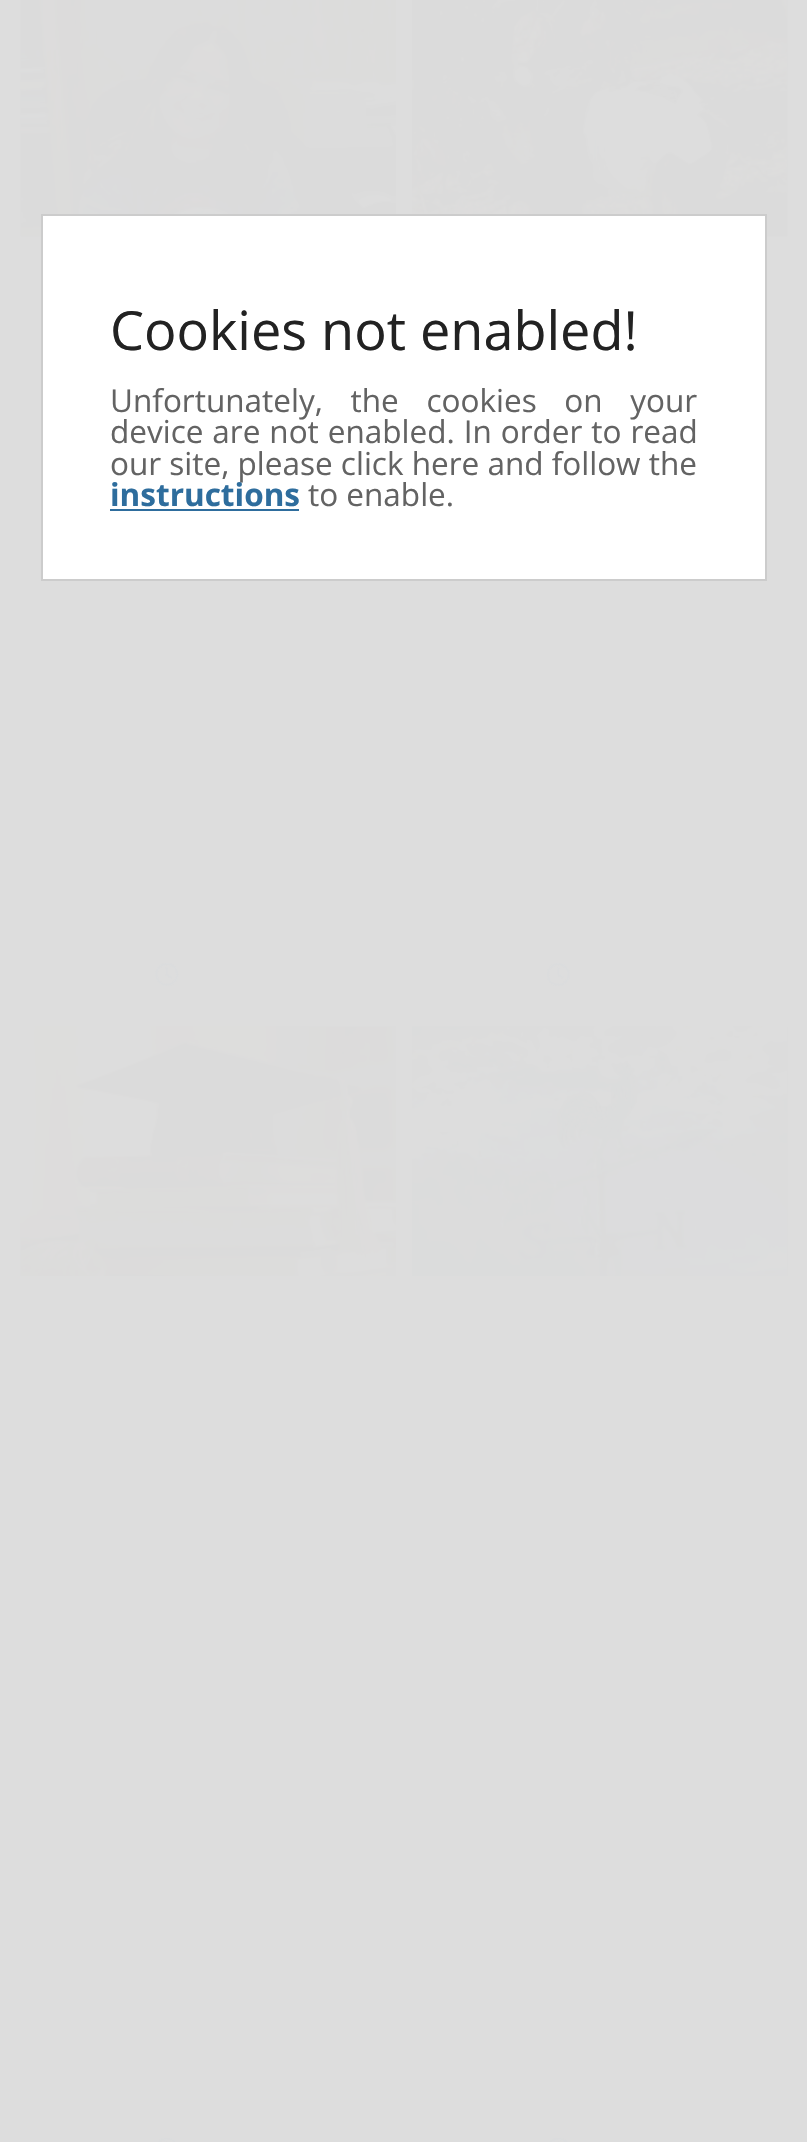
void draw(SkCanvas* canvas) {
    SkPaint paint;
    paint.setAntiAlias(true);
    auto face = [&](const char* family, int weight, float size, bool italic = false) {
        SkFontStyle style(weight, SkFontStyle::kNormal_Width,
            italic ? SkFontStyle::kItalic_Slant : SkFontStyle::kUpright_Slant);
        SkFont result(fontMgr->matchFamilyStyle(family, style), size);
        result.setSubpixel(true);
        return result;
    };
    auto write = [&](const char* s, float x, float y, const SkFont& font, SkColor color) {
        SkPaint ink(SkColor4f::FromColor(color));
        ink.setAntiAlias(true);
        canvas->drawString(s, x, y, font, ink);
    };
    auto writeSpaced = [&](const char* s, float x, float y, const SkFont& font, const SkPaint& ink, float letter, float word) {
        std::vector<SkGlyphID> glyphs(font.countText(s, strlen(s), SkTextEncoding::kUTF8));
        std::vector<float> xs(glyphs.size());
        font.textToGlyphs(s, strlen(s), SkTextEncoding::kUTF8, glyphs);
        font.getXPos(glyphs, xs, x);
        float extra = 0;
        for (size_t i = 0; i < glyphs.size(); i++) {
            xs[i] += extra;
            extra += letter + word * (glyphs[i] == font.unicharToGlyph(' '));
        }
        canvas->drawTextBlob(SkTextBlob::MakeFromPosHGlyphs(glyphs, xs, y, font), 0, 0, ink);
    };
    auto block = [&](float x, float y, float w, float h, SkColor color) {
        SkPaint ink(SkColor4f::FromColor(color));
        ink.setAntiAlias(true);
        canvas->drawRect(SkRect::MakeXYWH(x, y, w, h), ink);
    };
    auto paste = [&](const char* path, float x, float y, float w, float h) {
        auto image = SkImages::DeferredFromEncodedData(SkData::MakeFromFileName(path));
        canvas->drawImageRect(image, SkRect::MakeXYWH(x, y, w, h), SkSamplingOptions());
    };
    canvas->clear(SkColorSetRGB(221, 221, 221));
    paste("pic1.png", 20, 0, 376, 237);
    paste("pic2.png", 155, 963, 24, 23);
    paste("pic3.png", 411, 0, 377, 237);
    paste("pic4.png", 547, 963, 23, 23);
    paste("pic5.png", 20, 1026, 376, 250);
    paste("pic6.png", 157, 2138, 19, 4);
    paste("pic7.png", 411, 1026, 377, 250);
    paste("pic8.png", 549, 2138, 19, 4);
    paint.setColor(SK_ColorWHITE);
    canvas->drawRect(SkRect::MakeXYWH(42, 215, 724, 365), paint);
    paint.setStyle(SkPaint::kStroke_Style);
    paint.setStrokeWidth(2);
    paint.setColor(SkColorSetRGB(204, 204, 204));
    canvas->drawRect(SkRect::MakeXYWH(42, 215, 724, 365), paint);
    auto kFont1 = face("Open Sans", 400, 54);
    write("Cookies not enabled!", 110, 350, kFont1, SkColorSetRGB(34, 34, 34));
    auto kFont2 = face("Open Sans", 400, 31.5f);
    paint.setStyle(SkPaint::kFill_Style);
    paint.setColor(SkColorSetRGB(99, 99, 99));
    writeSpaced("Unfortunately, the cookies on your", 110, 412, kFont2, paint, 0, 19.5f);
    writeSpaced("device are not enabled. In order to read", 110, 443, kFont2, paint, 0, 0.75f);
    write("our site, please click here and follow the", 110, 475, kFont2, SkColorSetRGB(99, 99, 99));
    auto kFont3 = face("Open Sans", 700, 31.5f);
    write("instructions", 110, 506, kFont3, SkColorSetRGB(46, 109, 157));
    block(110, 509, 189, 2, SkColorSetRGB(46, 109, 157));
    write("to enable.", 308, 506, kFont2, SkColorSetRGB(99, 99, 99));
}
